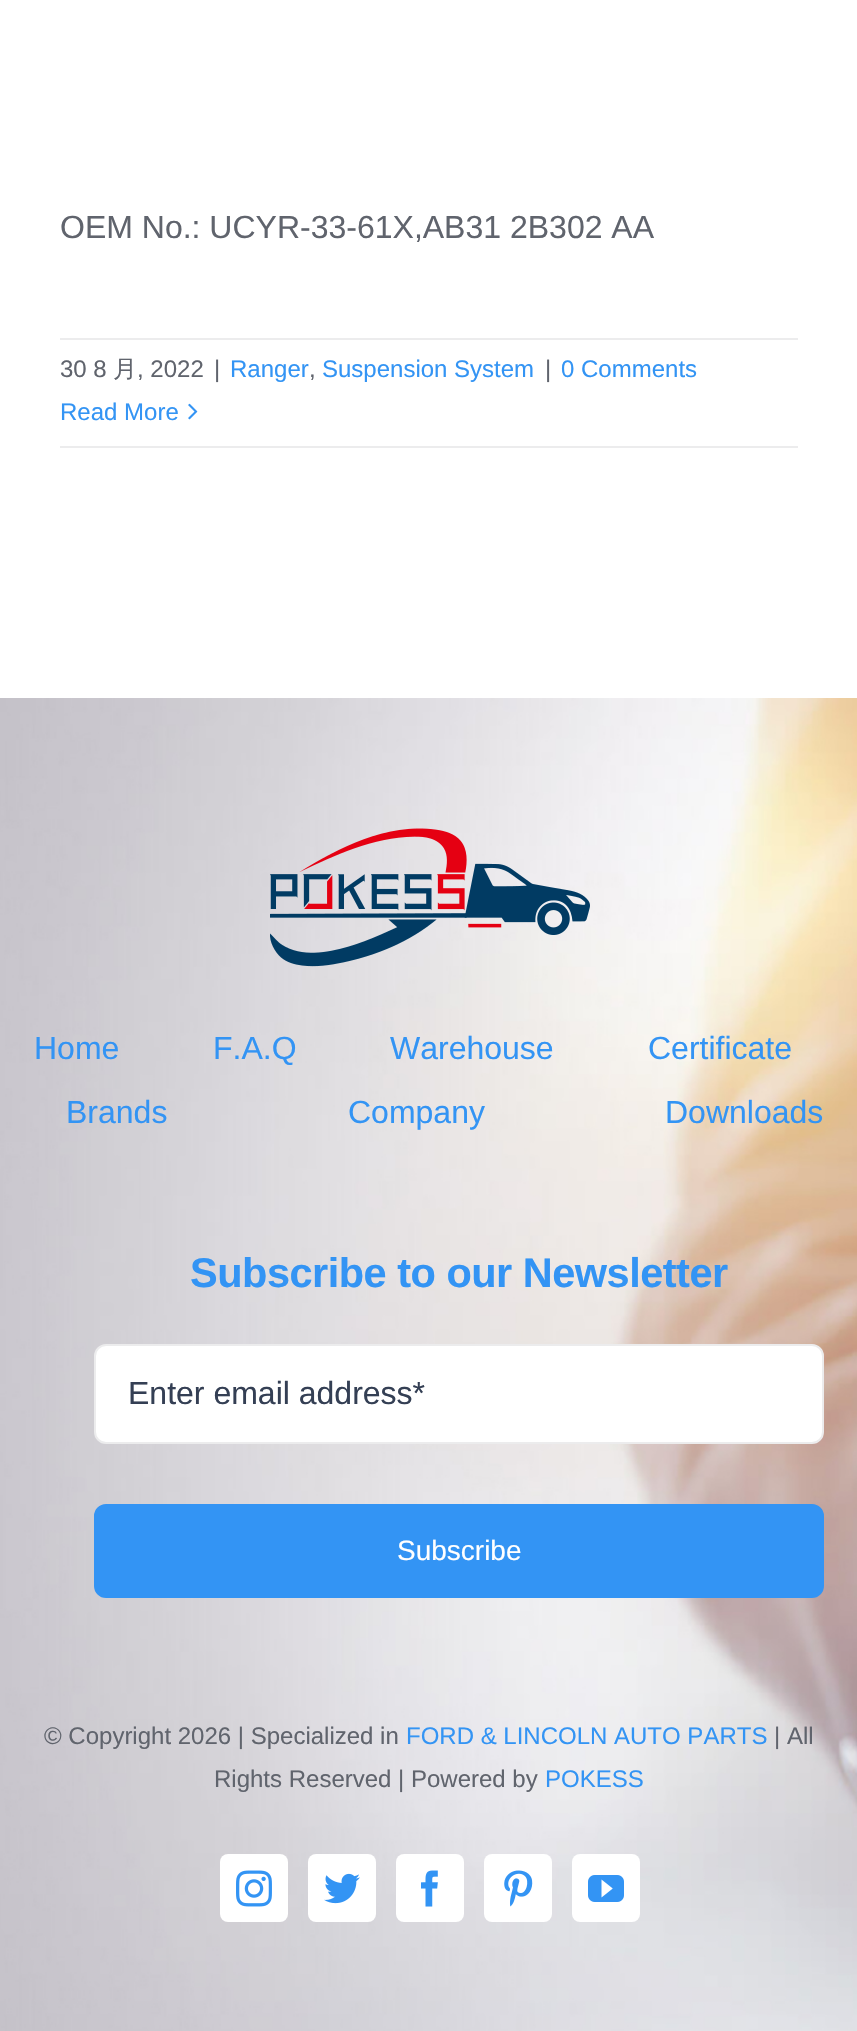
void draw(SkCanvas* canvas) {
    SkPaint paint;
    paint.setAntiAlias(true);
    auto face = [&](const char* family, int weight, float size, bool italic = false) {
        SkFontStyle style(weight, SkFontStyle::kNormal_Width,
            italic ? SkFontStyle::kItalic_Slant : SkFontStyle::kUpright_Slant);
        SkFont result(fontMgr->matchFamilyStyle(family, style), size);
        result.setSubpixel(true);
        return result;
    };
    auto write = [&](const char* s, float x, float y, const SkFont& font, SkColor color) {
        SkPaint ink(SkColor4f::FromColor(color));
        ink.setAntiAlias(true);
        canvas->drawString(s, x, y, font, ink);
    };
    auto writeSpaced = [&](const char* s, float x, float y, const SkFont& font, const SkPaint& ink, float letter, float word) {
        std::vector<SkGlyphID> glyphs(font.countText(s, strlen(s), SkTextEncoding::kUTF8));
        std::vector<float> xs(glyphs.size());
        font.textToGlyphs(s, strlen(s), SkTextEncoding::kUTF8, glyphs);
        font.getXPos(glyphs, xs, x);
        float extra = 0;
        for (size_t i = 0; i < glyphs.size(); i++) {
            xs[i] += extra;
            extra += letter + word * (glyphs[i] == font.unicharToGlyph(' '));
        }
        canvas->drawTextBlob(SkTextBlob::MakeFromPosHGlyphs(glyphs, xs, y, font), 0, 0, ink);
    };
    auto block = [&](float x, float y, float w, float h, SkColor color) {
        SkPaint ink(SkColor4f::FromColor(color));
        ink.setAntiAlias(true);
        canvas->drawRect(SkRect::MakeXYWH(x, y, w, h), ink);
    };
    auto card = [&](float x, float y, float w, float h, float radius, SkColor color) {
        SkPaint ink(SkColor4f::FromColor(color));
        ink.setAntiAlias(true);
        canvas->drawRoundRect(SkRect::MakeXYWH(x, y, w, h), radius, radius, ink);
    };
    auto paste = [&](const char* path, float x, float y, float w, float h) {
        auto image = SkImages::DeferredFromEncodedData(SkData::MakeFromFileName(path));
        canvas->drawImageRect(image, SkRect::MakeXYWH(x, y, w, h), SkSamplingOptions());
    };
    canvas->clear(SK_ColorWHITE);
    auto kFont1 = face("Liberation Sans", 400, 32);
    write("OEM No.: UCYR-33-61X,AB31 2B302 AA", 60, 238, kFont1, SkColorSetRGB(96, 100, 109));
    block(60, 338, 738, 2, SkColorSetRGB(236, 236, 237));
    block(60, 446, 738, 2, SkColorSetRGB(236, 236, 237));
    auto kFont2 = face("Liberation Sans", 400, 24);
    write("30 8", 60, 377, kFont2, SkColorSetRGB(96, 100, 109));
    auto kFont3 = face("WenQuanYi Zen Hei", 500, 24);
    write("月", 113, 377, kFont3, SkColorSetRGB(96, 100, 109));
    write(", 2022", 137, 377, kFont2, SkColorSetRGB(96, 100, 109));
    write("|", 214, 377, kFont2, SkColorSetRGB(96, 100, 109));
    write("Ranger", 230, 377, kFont2, SkColorSetRGB(51, 148, 244));
    write(",", 309, 377, kFont2, SkColorSetRGB(96, 100, 109));
    write("Suspension System", 322, 377, kFont2, SkColorSetRGB(51, 148, 244));
    write("|", 545, 377, kFont2, SkColorSetRGB(96, 100, 109));
    write("0 Comments", 561, 377, kFont2, SkColorSetRGB(51, 148, 244));
    write("Read More", 60, 420, kFont2, SkColorSetRGB(51, 148, 244));
    paste("pic1.png", 188, 403, 10, 17);
    paste("pic2.png", 0, 698, 857, 1333);
    paste("pic3.png", 270, 828, 320, 139);
    write("Home", 34, 1059, kFont1, SkColorSetRGB(51, 148, 244));
    write("F.A.Q", 213, 1059, kFont1, SkColorSetRGB(51, 148, 244));
    write("Warehouse", 390, 1059, kFont1, SkColorSetRGB(51, 148, 244));
    write("Certificate", 648, 1059, kFont1, SkColorSetRGB(51, 148, 244));
    write("Brands", 66, 1123, kFont1, SkColorSetRGB(51, 148, 244));
    write("Company", 348, 1123, kFont1, SkColorSetRGB(51, 148, 244));
    write("Downloads", 665, 1123, kFont1, SkColorSetRGB(51, 148, 244));
    auto kFont4 = face("Liberation Sans", 700, 41.5f);
    paint.setColor(SkColorSetRGB(51, 148, 244));
    writeSpaced("Subscribe to our Newsletter", 190, 1287, kFont4, paint, -0.5f, 0);
    paint.setColor(SK_ColorWHITE);
    canvas->drawRoundRect(SkRect::MakeXYWH(95, 1345, 728, 98), 11, 11, paint);
    paint.setStyle(SkPaint::kStroke_Style);
    paint.setStrokeWidth(2);
    paint.setColor(SkColorSetRGB(236, 236, 237));
    canvas->drawRoundRect(SkRect::MakeXYWH(95, 1345, 728, 98), 11, 11, paint);
    write("Enter email address*", 128, 1404, kFont1, SkColorSetRGB(52, 63, 84));
    paint.setStyle(SkPaint::kFill_Style);
    paint.setColor(SkColorSetRGB(51, 148, 244));
    canvas->drawRoundRect(SkRect::MakeXYWH(96, 1506, 726, 90), 10, 10, paint);
    paint.setStyle(SkPaint::kStroke_Style);
    paint.setStrokeWidth(4);
    canvas->drawRoundRect(SkRect::MakeXYWH(96, 1506, 726, 90), 10, 10, paint);
    auto kFont5 = face("Liberation Sans", 400, 28);
    write("Subscribe", 397, 1560, kFont5, SK_ColorWHITE);
    write("© Copyright 2026 | Specialized in", 44, 1744, kFont2, SkColorSetRGB(96, 100, 109));
    write("FORD & LINCOLN AUTO PARTS", 406, 1744, kFont2, SkColorSetRGB(51, 148, 244));
    write("| All", 774, 1744, kFont2, SkColorSetRGB(96, 100, 109));
    write("Rights Reserved | Powered by", 214, 1787, kFont2, SkColorSetRGB(96, 100, 109));
    write("POKESS", 545, 1787, kFont2, SkColorSetRGB(51, 148, 244));
    card(220, 1854, 68, 68, 8, SK_ColorWHITE);
    paste("pic4.png", 236, 1870, 36, 37);
    card(308, 1854, 68, 68, 8, SK_ColorWHITE);
    paste("pic5.png", 324, 1873, 36, 31);
    card(396, 1854, 68, 68, 8, SK_ColorWHITE);
    paste("pic6.png", 421, 1870, 17, 37);
    card(484, 1854, 68, 68, 8, SK_ColorWHITE);
    paste("pic7.png", 504, 1870, 29, 37);
    card(572, 1854, 68, 68, 8, SK_ColorWHITE);
    paste("pic8.png", 588, 1875, 36, 27);
}
